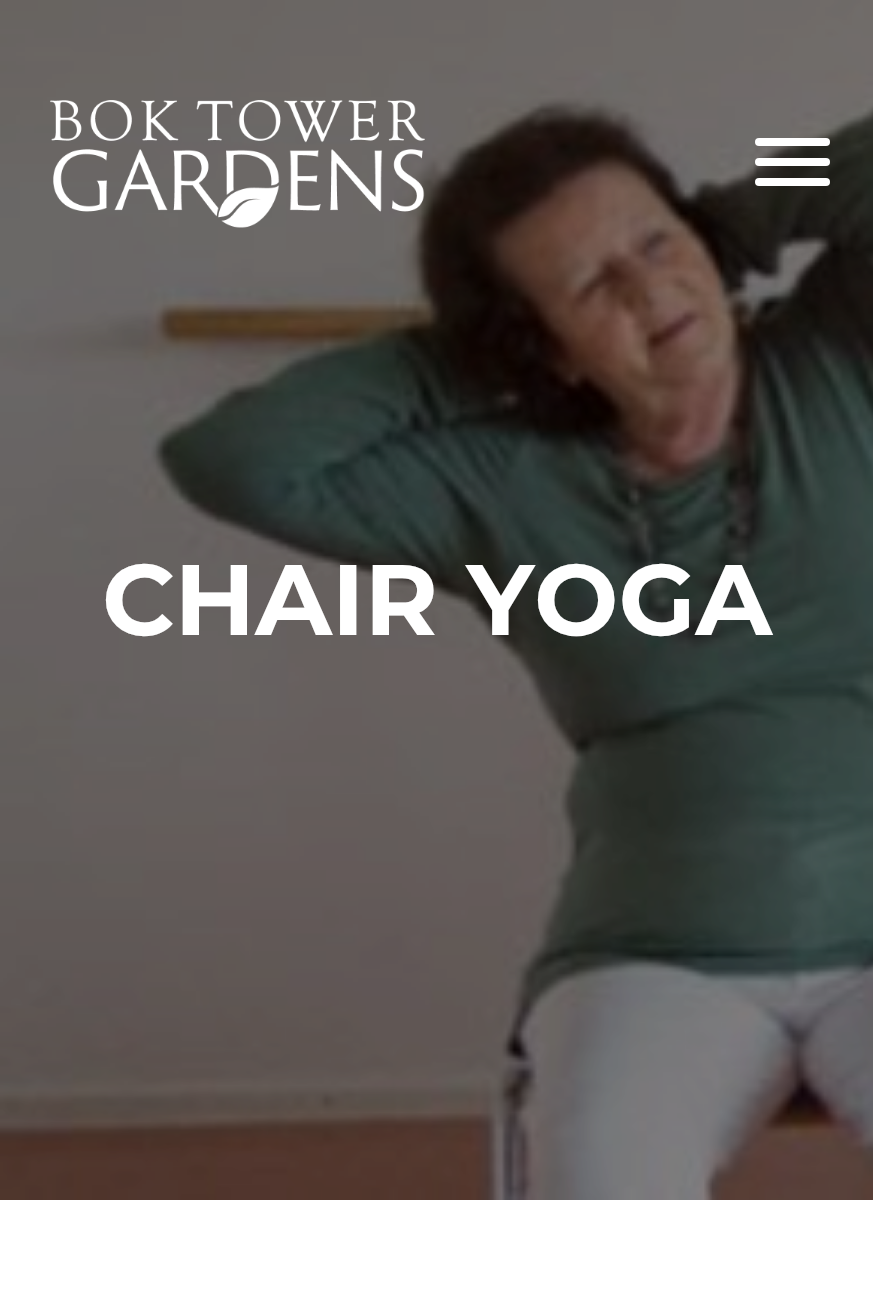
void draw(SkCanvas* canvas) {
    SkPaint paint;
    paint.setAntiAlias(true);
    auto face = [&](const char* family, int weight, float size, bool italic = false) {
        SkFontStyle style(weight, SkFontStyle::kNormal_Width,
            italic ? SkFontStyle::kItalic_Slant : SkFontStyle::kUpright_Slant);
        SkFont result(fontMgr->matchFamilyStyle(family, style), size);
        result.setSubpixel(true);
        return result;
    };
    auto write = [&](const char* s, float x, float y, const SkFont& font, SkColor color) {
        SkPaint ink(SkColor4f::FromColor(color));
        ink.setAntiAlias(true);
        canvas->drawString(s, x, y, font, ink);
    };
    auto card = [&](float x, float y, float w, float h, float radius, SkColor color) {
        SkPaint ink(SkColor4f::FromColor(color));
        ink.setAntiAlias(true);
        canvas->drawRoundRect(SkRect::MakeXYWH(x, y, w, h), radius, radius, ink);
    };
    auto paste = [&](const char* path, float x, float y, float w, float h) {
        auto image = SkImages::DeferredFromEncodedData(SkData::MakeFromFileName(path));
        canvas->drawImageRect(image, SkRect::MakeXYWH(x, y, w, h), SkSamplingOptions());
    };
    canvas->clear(SK_ColorWHITE);
    paste("pic2.png", 0, 0, 873, 1200);
    paste("pic1.png", 50, 100, 375, 128);
    card(755, 158, 75, 8, 4, SK_ColorWHITE);
    card(755, 138, 75, 8, 4, SK_ColorWHITE);
    card(755, 178, 75, 8, 4, SK_ColorWHITE);
    auto kFont1 = face("Montserrat", 700, 100);
    write("CHAIR YOGA", 102, 635, kFont1, SK_ColorWHITE);
}
